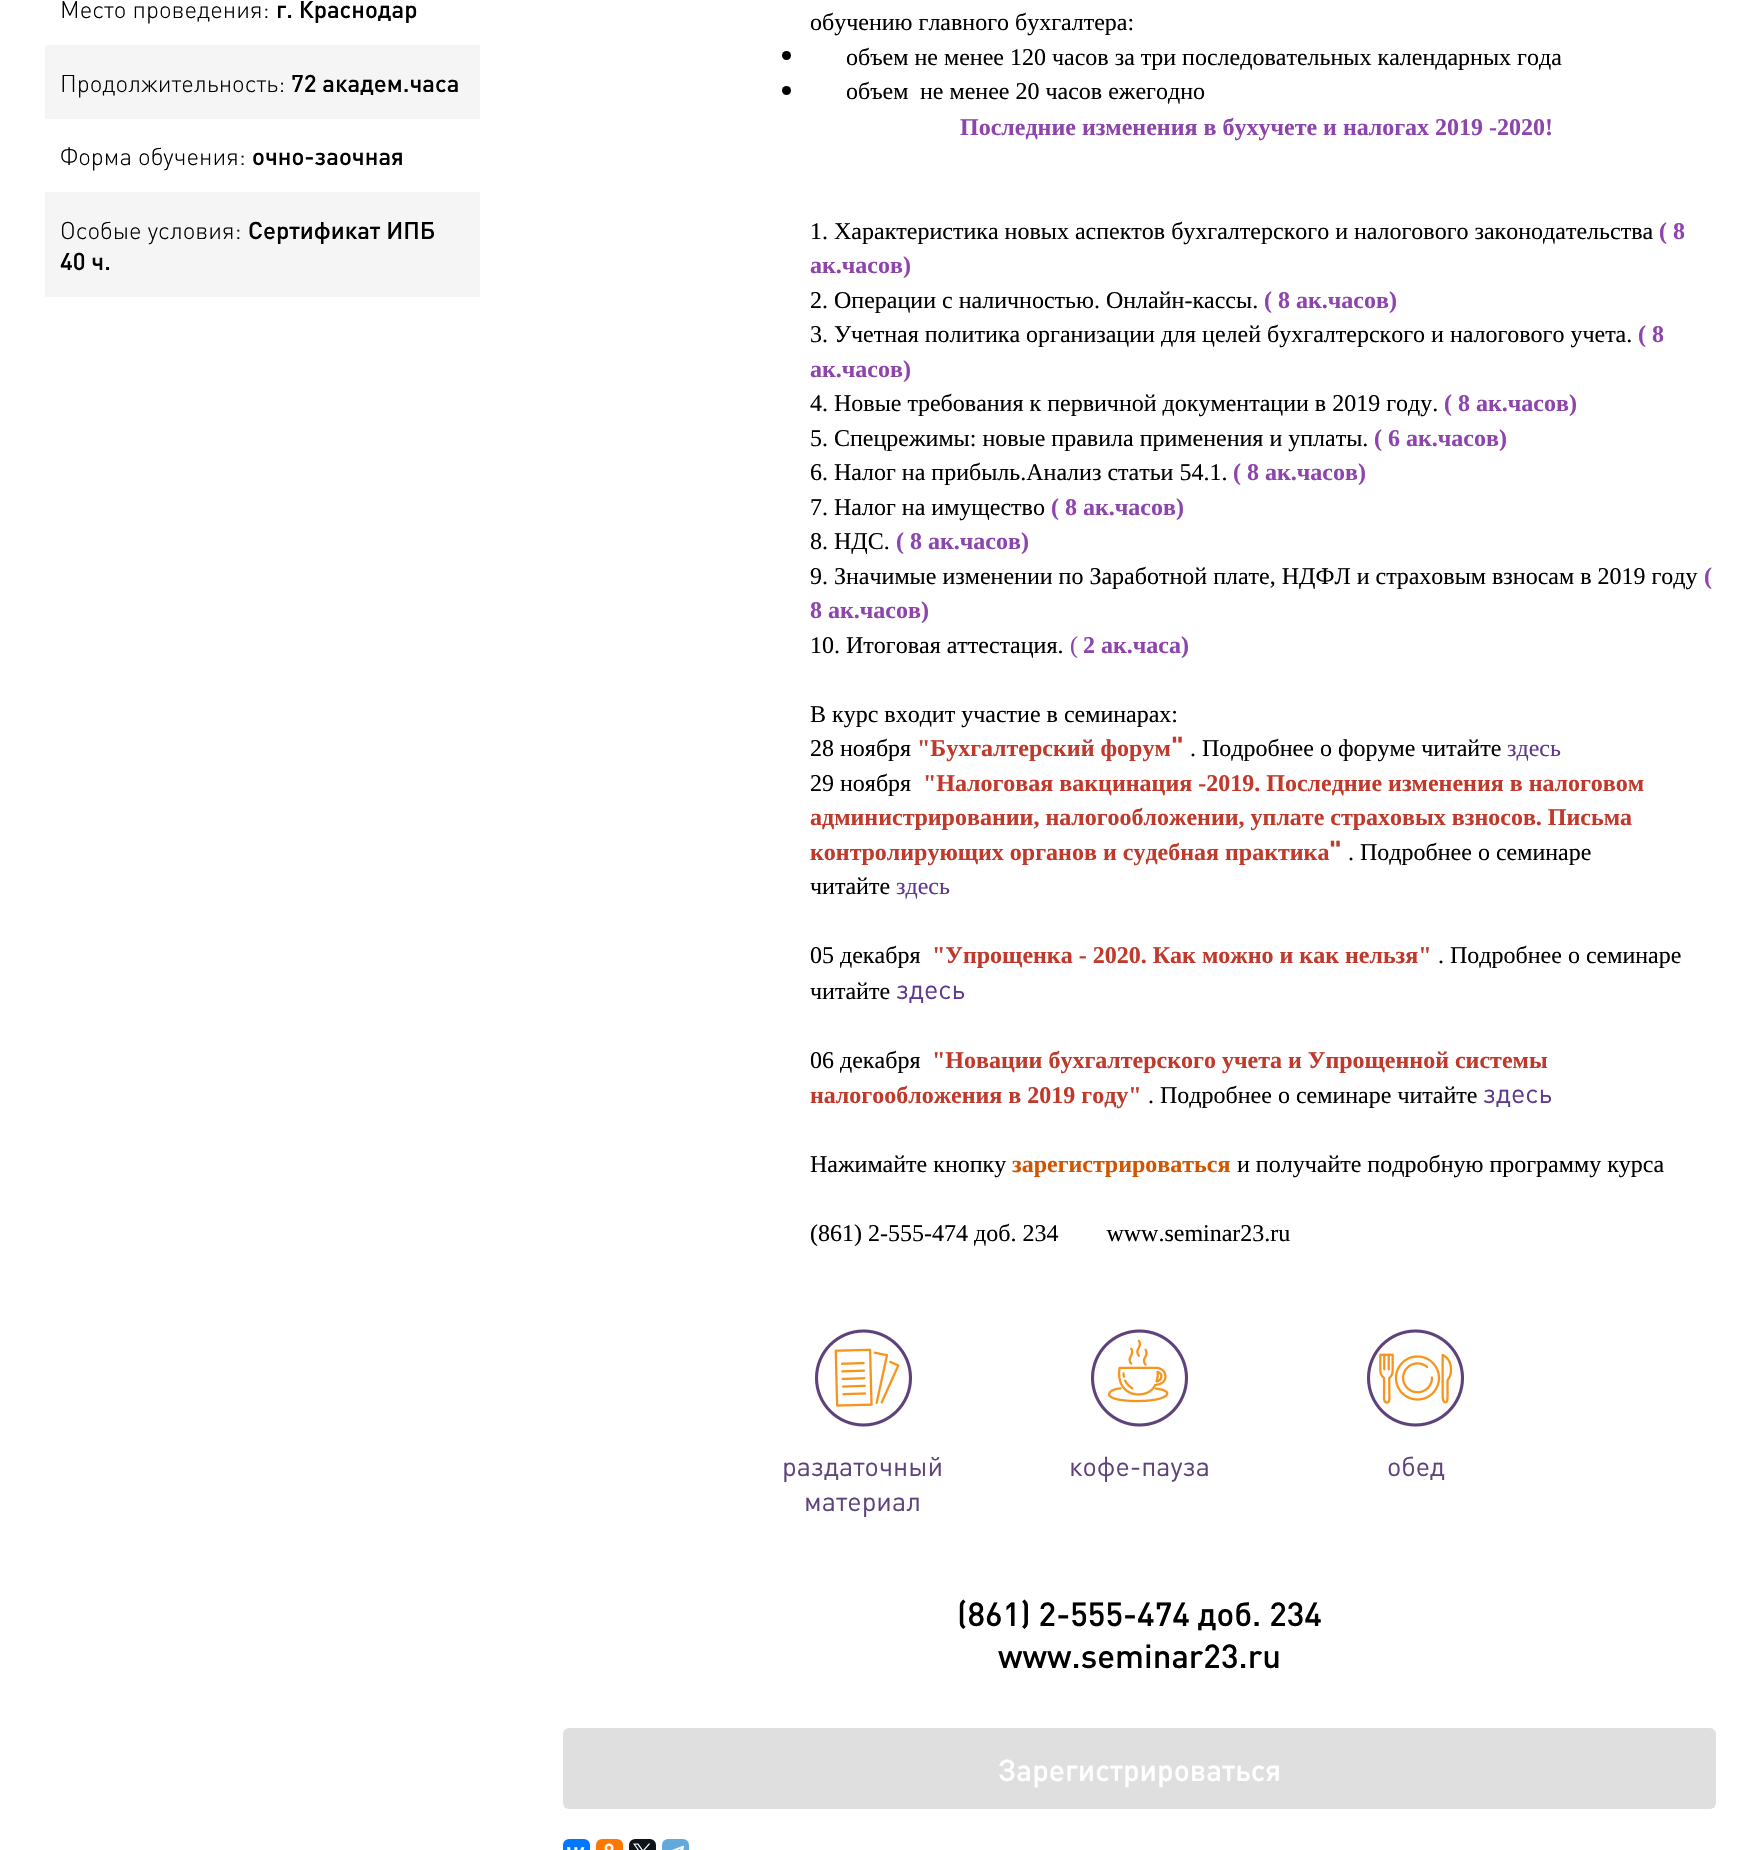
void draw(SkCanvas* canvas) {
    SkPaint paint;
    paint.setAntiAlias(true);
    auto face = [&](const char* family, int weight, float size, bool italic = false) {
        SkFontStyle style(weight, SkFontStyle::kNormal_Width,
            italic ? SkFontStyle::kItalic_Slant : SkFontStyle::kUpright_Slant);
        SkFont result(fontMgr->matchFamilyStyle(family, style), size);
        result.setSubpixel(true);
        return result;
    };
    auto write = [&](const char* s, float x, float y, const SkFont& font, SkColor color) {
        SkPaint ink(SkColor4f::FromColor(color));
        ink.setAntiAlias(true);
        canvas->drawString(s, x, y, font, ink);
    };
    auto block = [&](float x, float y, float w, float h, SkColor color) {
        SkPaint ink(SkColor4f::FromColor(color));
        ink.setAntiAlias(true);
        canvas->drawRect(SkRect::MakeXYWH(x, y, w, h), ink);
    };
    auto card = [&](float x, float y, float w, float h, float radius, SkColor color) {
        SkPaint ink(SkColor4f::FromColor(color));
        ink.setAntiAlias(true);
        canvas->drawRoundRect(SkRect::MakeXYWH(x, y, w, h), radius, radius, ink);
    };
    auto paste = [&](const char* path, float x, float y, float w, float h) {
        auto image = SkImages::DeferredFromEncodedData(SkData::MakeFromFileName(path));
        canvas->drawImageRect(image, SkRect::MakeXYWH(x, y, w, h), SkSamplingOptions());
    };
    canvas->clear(SK_ColorWHITE);
    auto kFont1 = face("DIN", 300, 24);
    write("Место проведения:", 60, 18, kFont1, SK_ColorBLACK);
    auto kFont2 = face("DIN", 500, 24);
    write("г. Краснодар", 276, 18, kFont2, SK_ColorBLACK);
    block(45, 45, 435, 74, SkColorSetRGB(245, 245, 245));
    write("Продолжительность:", 60, 92, kFont1, SK_ColorBLACK);
    write("72 академ.часа", 291, 92, kFont2, SK_ColorBLACK);
    write("Форма обучения:", 60, 165, kFont1, SK_ColorBLACK);
    write("очно-заочная", 252, 165, kFont2, SK_ColorBLACK);
    block(45, 192, 435, 105, SkColorSetRGB(245, 245, 245));
    write("Особые условия:", 60, 239, kFont1, SK_ColorBLACK);
    write("Сертификат ИПБ", 248, 239, kFont2, SK_ColorBLACK);
    write("40 ч.", 60, 270, kFont2, SK_ColorBLACK);
    auto kFont3 = face("Liberation Serif", 400, 24);
    write("обучению главного бухгалтера:", 810, 30, kFont3, SK_ColorBLACK);
    paint.setColor(SK_ColorBLACK);
    canvas->drawCircle(786.5f, 55.5f, 4.5f, paint);
    write("объем не менее 120 часов за три последовательных календарных года", 846, 65, kFont3, SK_ColorBLACK);
    canvas->drawCircle(786.5f, 90.5f, 4.5f, paint);
    write("объем", 846, 99, kFont3, SK_ColorBLACK);
    write("не менее 20 часов ежегодно", 920, 99, kFont3, SK_ColorBLACK);
    auto kFont4 = face("Liberation Serif", 700, 24);
    write("Последние изменения в бухучете и налогах 2019 -2020!", 960, 135, kFont4, SkColorSetRGB(142, 68, 173));
    write("1. Характеристика новых аспектов бухгалтерского и налогового законодательства", 810, 239, kFont3, SK_ColorBLACK);
    write("( 8", 1659, 239, kFont4, SkColorSetRGB(142, 68, 173));
    write("ак.часов)", 810, 273, kFont4, SkColorSetRGB(142, 68, 173));
    write("2. Операции с наличностью. Онлайн-кассы.", 810, 308, kFont3, SK_ColorBLACK);
    write("( 8 ак.часов)", 1264, 308, kFont4, SkColorSetRGB(142, 68, 173));
    write("3. Учетная политика организации для целей бухгалтерского и налогового учета.", 810, 342, kFont3, SK_ColorBLACK);
    write("( 8", 1638, 342, kFont4, SkColorSetRGB(142, 68, 173));
    write("ак.часов)", 810, 377, kFont4, SkColorSetRGB(142, 68, 173));
    write("4. Новые требования к первичной документации в 2019 году.", 810, 411, kFont3, SK_ColorBLACK);
    write("( 8 ак.часов)", 1444, 411, kFont4, SkColorSetRGB(142, 68, 173));
    write("5. Спецрежимы: новые правила применения и уплаты.", 810, 446, kFont3, SK_ColorBLACK);
    write("( 6 ак.часов)", 1374, 446, kFont4, SkColorSetRGB(142, 68, 173));
    write("6. Налог на прибыль.Анализ статьи 54.1.", 810, 480, kFont3, SK_ColorBLACK);
    write("( 8 ак.часов)", 1233, 480, kFont4, SkColorSetRGB(142, 68, 173));
    write("7. Налог на имущество", 810, 515, kFont3, SK_ColorBLACK);
    write("( 8 ак.часов)", 1051, 515, kFont4, SkColorSetRGB(142, 68, 173));
    write("8. НДС.", 810, 549, kFont3, SK_ColorBLACK);
    write("( 8 ак.часов)", 896, 549, kFont4, SkColorSetRGB(142, 68, 173));
    write("9. Значимые изменении по Заработной плате, НДФЛ и страховым взносам в 2019 году", 810, 584, kFont3, SK_ColorBLACK);
    write("(", 1704, 584, kFont4, SkColorSetRGB(142, 68, 173));
    write("8 ак.часов)", 810, 618, kFont4, SkColorSetRGB(142, 68, 173));
    write("10. Итоговая аттестация.", 810, 653, kFont3, SK_ColorBLACK);
    write("(", 1070, 653, kFont3, SkColorSetRGB(142, 68, 173));
    write("2 ак.часа)", 1083, 653, kFont4, SkColorSetRGB(142, 68, 173));
    write("В курс входит участие в семинарах:", 810, 722, kFont3, SK_ColorBLACK);
    write("28 ноября", 810, 756, kFont3, SK_ColorBLACK);
    write("\"Бухгалтерский форум", 917, 756, kFont4, SkColorSetRGB(192, 57, 43));
    auto kFont5 = face("DIN", 700, 27);
    write("\"", 1171, 756, kFont5, SkColorSetRGB(192, 57, 43));
    write(". Подробнее о форуме читайте", 1190, 756, kFont3, SK_ColorBLACK);
    write("здесь", 1507, 756, kFont3, SkColorSetRGB(94, 55, 143));
    write("29 ноября", 810, 791, kFont3, SK_ColorBLACK);
    write("\"Налоговая вакцинация -2019. Последние изменения в налоговом", 923, 791, kFont4, SkColorSetRGB(192, 57, 43));
    write("администрировании, налогообложении, уплате страховых взносов. Письма", 810, 825, kFont4, SkColorSetRGB(192, 57, 43));
    write("контролирующих органов и судебная практика", 810, 860, kFont4, SkColorSetRGB(192, 57, 43));
    write("\"", 1329, 860, kFont5, SkColorSetRGB(192, 57, 43));
    write(". Подробнее о семинаре", 1348, 860, kFont3, SK_ColorBLACK);
    write("читайте", 810, 894, kFont3, SK_ColorBLACK);
    write("здесь", 896, 894, kFont3, SkColorSetRGB(94, 55, 143));
    write("05 декабря", 810, 963, kFont3, SK_ColorBLACK);
    write("\"Упрощенка - 2020. Как можно и как нельзя\"", 932, 963, kFont4, SkColorSetRGB(192, 57, 43));
    write(". Подробнее о семинаре", 1438, 963, kFont3, SK_ColorBLACK);
    write("читайте", 810, 999, kFont3, SK_ColorBLACK);
    auto kFont6 = face("DIN", 400, 27);
    write("здесь", 896, 999, kFont6, SkColorSetRGB(94, 55, 143));
    write("06 декабря", 810, 1068, kFont3, SK_ColorBLACK);
    write("\"Новации бухгалтерского учета и Упрощенной системы", 932, 1068, kFont4, SkColorSetRGB(192, 57, 43));
    write("налогообложения в 2019 году\"", 810, 1103, kFont4, SkColorSetRGB(192, 57, 43));
    write(". Подробнее о семинаре читайте", 1148, 1103, kFont3, SK_ColorBLACK);
    write("здесь", 1483, 1103, kFont6, SkColorSetRGB(94, 55, 143));
    write("Нажимайте кнопку", 810, 1172, kFont3, SK_ColorBLACK);
    write("зарегистрироваться", 1012, 1172, kFont4, SkColorSetRGB(211, 84, 0));
    write("и получайте подробную программу курса", 1237, 1172, kFont3, SK_ColorBLACK);
    write("(861) 2-555-474 доб. 234        www.seminar23.ru", 810, 1241, kFont3, SK_ColorBLACK);
    paste("pic1.png", 815, 1329, 97, 98);
    write("раздаточный", 782, 1476, kFont6, SkColorSetRGB(94, 67, 123));
    write("материал", 804, 1511, kFont6, SkColorSetRGB(94, 67, 123));
    paste("pic2.png", 1091, 1329, 97, 98);
    write("кофе-пауза", 1069, 1476, kFont6, SkColorSetRGB(94, 67, 123));
    paste("pic3.png", 1367, 1329, 97, 98);
    write("обед", 1387, 1476, kFont6, SkColorSetRGB(94, 67, 123));
    auto kFont7 = face("DIN", 500, 33);
    write("(861) 2-555-474 доб. 234", 957, 1626, kFont7, SK_ColorBLACK);
    write("www.seminar23.ru", 998, 1668, kFont7, SK_ColorBLACK);
    card(563, 1728, 1153, 81, 6, SkColorSetRGB(223, 223, 223));
    auto kFont8 = face("DIN", 500, 30);
    write("Зарегистрироваться", 998, 1781, kFont8, SK_ColorWHITE);
    card(563, 1839, 27, 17, 6, SkColorSetRGB(0, 119, 255));
    paste("pic4.png", 567, 1847, 18, 3);
    card(596, 1839, 27, 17, 6, SkColorSetRGB(255, 119, 0));
    paste("pic5.png", 604, 1843, 10, 7);
    card(629, 1839, 27, 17, 6, SkColorSetRGB(15, 20, 25));
    paste("pic6.png", 633, 1843, 18, 7);
    card(662, 1839, 27, 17, 6, SkColorSetRGB(100, 169, 220));
    paste("pic7.png", 672, 1845, 12, 5);
}
